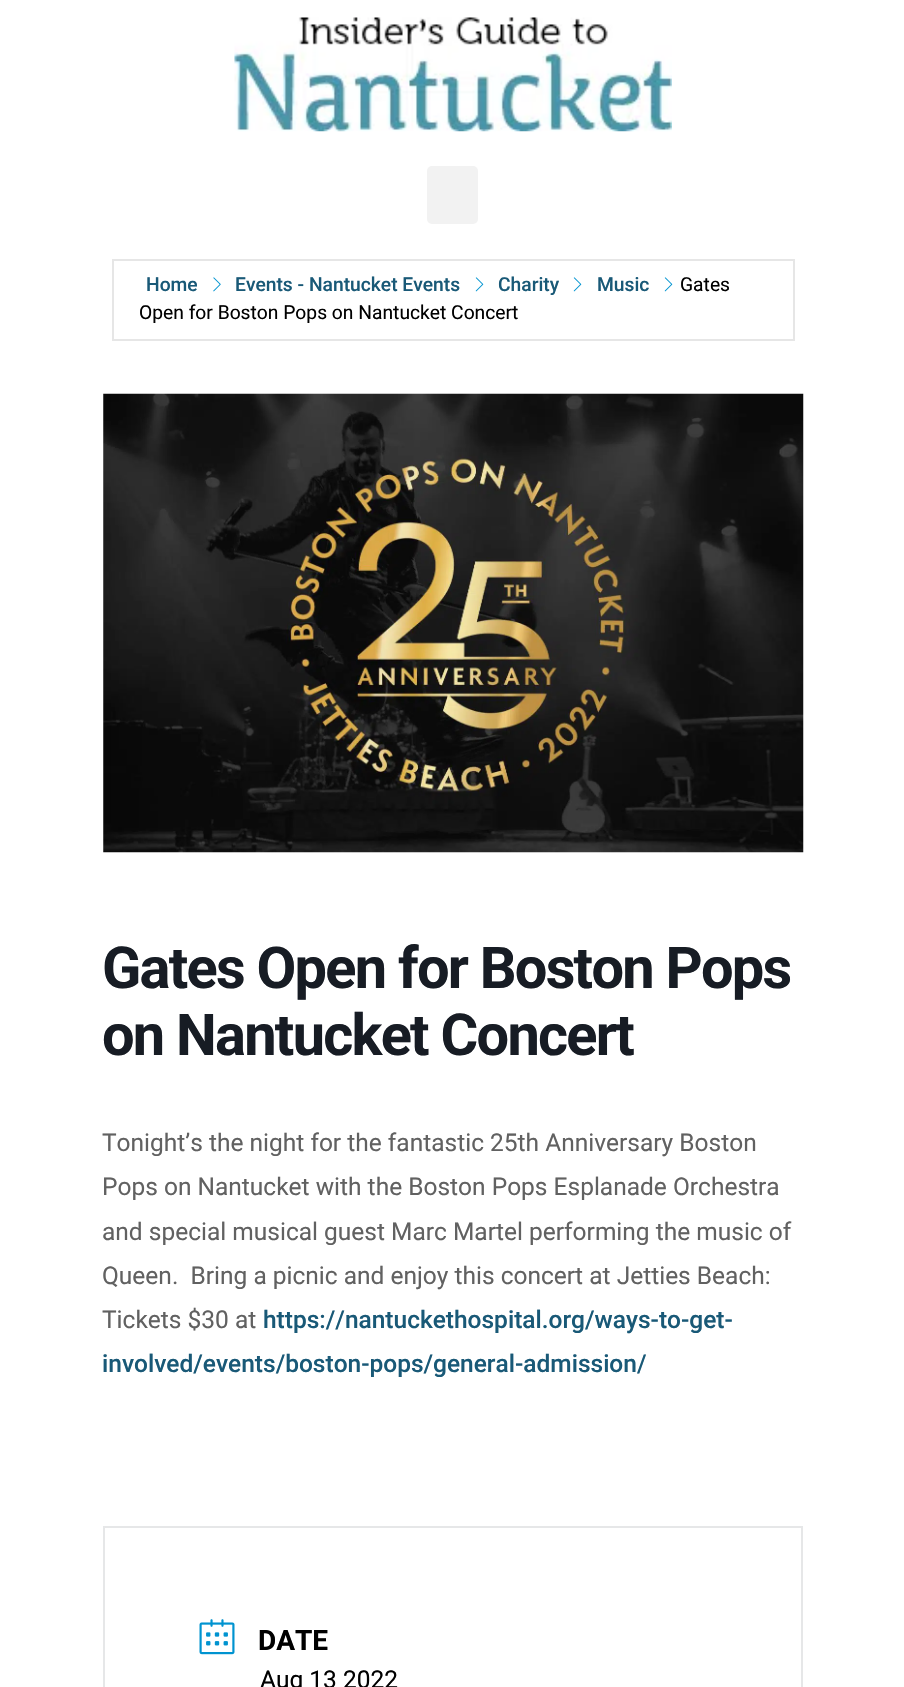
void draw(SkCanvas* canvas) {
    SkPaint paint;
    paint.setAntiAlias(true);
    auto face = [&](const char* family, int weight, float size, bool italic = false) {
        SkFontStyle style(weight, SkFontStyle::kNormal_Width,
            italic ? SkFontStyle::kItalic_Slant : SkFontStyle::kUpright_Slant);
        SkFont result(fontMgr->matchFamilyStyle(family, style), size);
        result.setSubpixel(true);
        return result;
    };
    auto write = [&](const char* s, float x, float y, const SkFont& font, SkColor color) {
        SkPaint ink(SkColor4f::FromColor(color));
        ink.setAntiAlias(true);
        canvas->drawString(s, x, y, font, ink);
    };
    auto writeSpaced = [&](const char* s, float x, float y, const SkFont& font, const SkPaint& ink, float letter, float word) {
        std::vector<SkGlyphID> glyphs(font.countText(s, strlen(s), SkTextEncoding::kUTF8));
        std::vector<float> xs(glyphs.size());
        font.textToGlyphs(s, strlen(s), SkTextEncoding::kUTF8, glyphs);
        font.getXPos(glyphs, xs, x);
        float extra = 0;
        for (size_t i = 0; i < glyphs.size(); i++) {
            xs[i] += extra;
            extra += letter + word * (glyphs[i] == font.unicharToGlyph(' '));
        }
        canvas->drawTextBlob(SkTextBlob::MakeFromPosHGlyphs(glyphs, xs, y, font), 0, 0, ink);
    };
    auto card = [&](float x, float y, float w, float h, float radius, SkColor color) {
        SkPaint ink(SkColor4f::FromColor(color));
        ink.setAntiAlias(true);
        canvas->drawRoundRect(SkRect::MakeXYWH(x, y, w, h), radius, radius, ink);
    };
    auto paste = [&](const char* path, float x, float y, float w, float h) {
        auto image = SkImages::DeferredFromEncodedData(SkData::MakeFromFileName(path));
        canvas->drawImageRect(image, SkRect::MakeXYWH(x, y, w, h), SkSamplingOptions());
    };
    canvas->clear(SK_ColorWHITE);
    paste("pic1.png", 234, 17, 438, 115);
    card(427, 166, 51, 58, 5, SkColorSetRGB(242, 242, 242));
    paint.setStyle(SkPaint::kStroke_Style);
    paint.setStrokeWidth(2);
    paint.setColor(SkColorSetRGB(230, 230, 230));
    canvas->drawRect(SkRect::MakeXYWH(113, 260, 681, 80), paint);
    auto kFont1 = face("Roboto", 500, 19.25f);
    write("Home", 146, 291, kFont1, SkColorSetRGB(25, 89, 119));
    paste("pic2.png", 213, 277, 8, 15);
    write("Events - Nantucket Events", 235, 291, kFont1, SkColorSetRGB(25, 89, 119));
    paste("pic3.png", 475, 277, 9, 15);
    write("Charity", 498, 291, kFont1, SkColorSetRGB(25, 89, 119));
    paste("pic3.png", 573, 277, 9, 15);
    write("Music", 597, 291, kFont1, SkColorSetRGB(25, 89, 119));
    paste("pic3.png", 664, 277, 9, 15);
    auto kFont2 = face("Roboto", 400, 19.25f);
    write("Gates", 680, 291, kFont2, SK_ColorBLACK);
    write("Open for Boston Pops on Nantucket Concert", 139, 319, kFont2, SK_ColorBLACK);
    paste("pic4.png", 103, 393, 701, 460);
    auto kFont3 = face("Roboto", 700, 57.75f);
    paint.setStyle(SkPaint::kFill_Style);
    paint.setColor(SkColorSetRGB(23, 28, 36));
    writeSpaced("Gates Open for Boston Pops", 102, 988, kFont3, paint, -1.75f, 0);
    writeSpaced("on Nantucket Concert", 102, 1055, kFont3, paint, -1.75f, 0);
    auto kFont4 = face("Roboto", 400, 24.5f);
    write("Tonight’s the night for the fantastic 25th Anniversary Boston", 102, 1151, kFont4, SkColorSetRGB(97, 97, 97));
    write("Pops on Nantucket with the Boston Pops Esplanade Orchestra", 102, 1195, kFont4, SkColorSetRGB(97, 97, 97));
    write("and special musical guest Marc Martel performing the music of", 102, 1240, kFont4, SkColorSetRGB(97, 97, 97));
    write("Queen.  Bring a picnic and enjoy this concert at Jetties Beach:", 102, 1284, kFont4, SkColorSetRGB(97, 97, 97));
    write("Tickets $30 at", 102, 1328, kFont4, SkColorSetRGB(97, 97, 97));
    auto kFont5 = face("Roboto", 500, 24.5f);
    write("https://nantuckethospital.org/ways-to-get-", 263, 1328, kFont5, SkColorSetRGB(25, 89, 119));
    write("involved/events/boston-pops/general-admission/", 102, 1372, kFont5, SkColorSetRGB(25, 89, 119));
    paint.setStyle(SkPaint::kStroke_Style);
    paint.setColor(SkColorSetRGB(230, 231, 232));
    canvas->drawRect(SkRect::MakeXYWH(104, 1527, 698, 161), paint);
    paste("pic5.png", 199, 1619, 36, 36);
    auto kFont6 = face("Roboto", 700, 28);
    write("DATE", 258, 1650, kFont6, SK_ColorBLACK);
    write("Aug 13 2022", 260, 1688, kFont4, SK_ColorBLACK);
}
